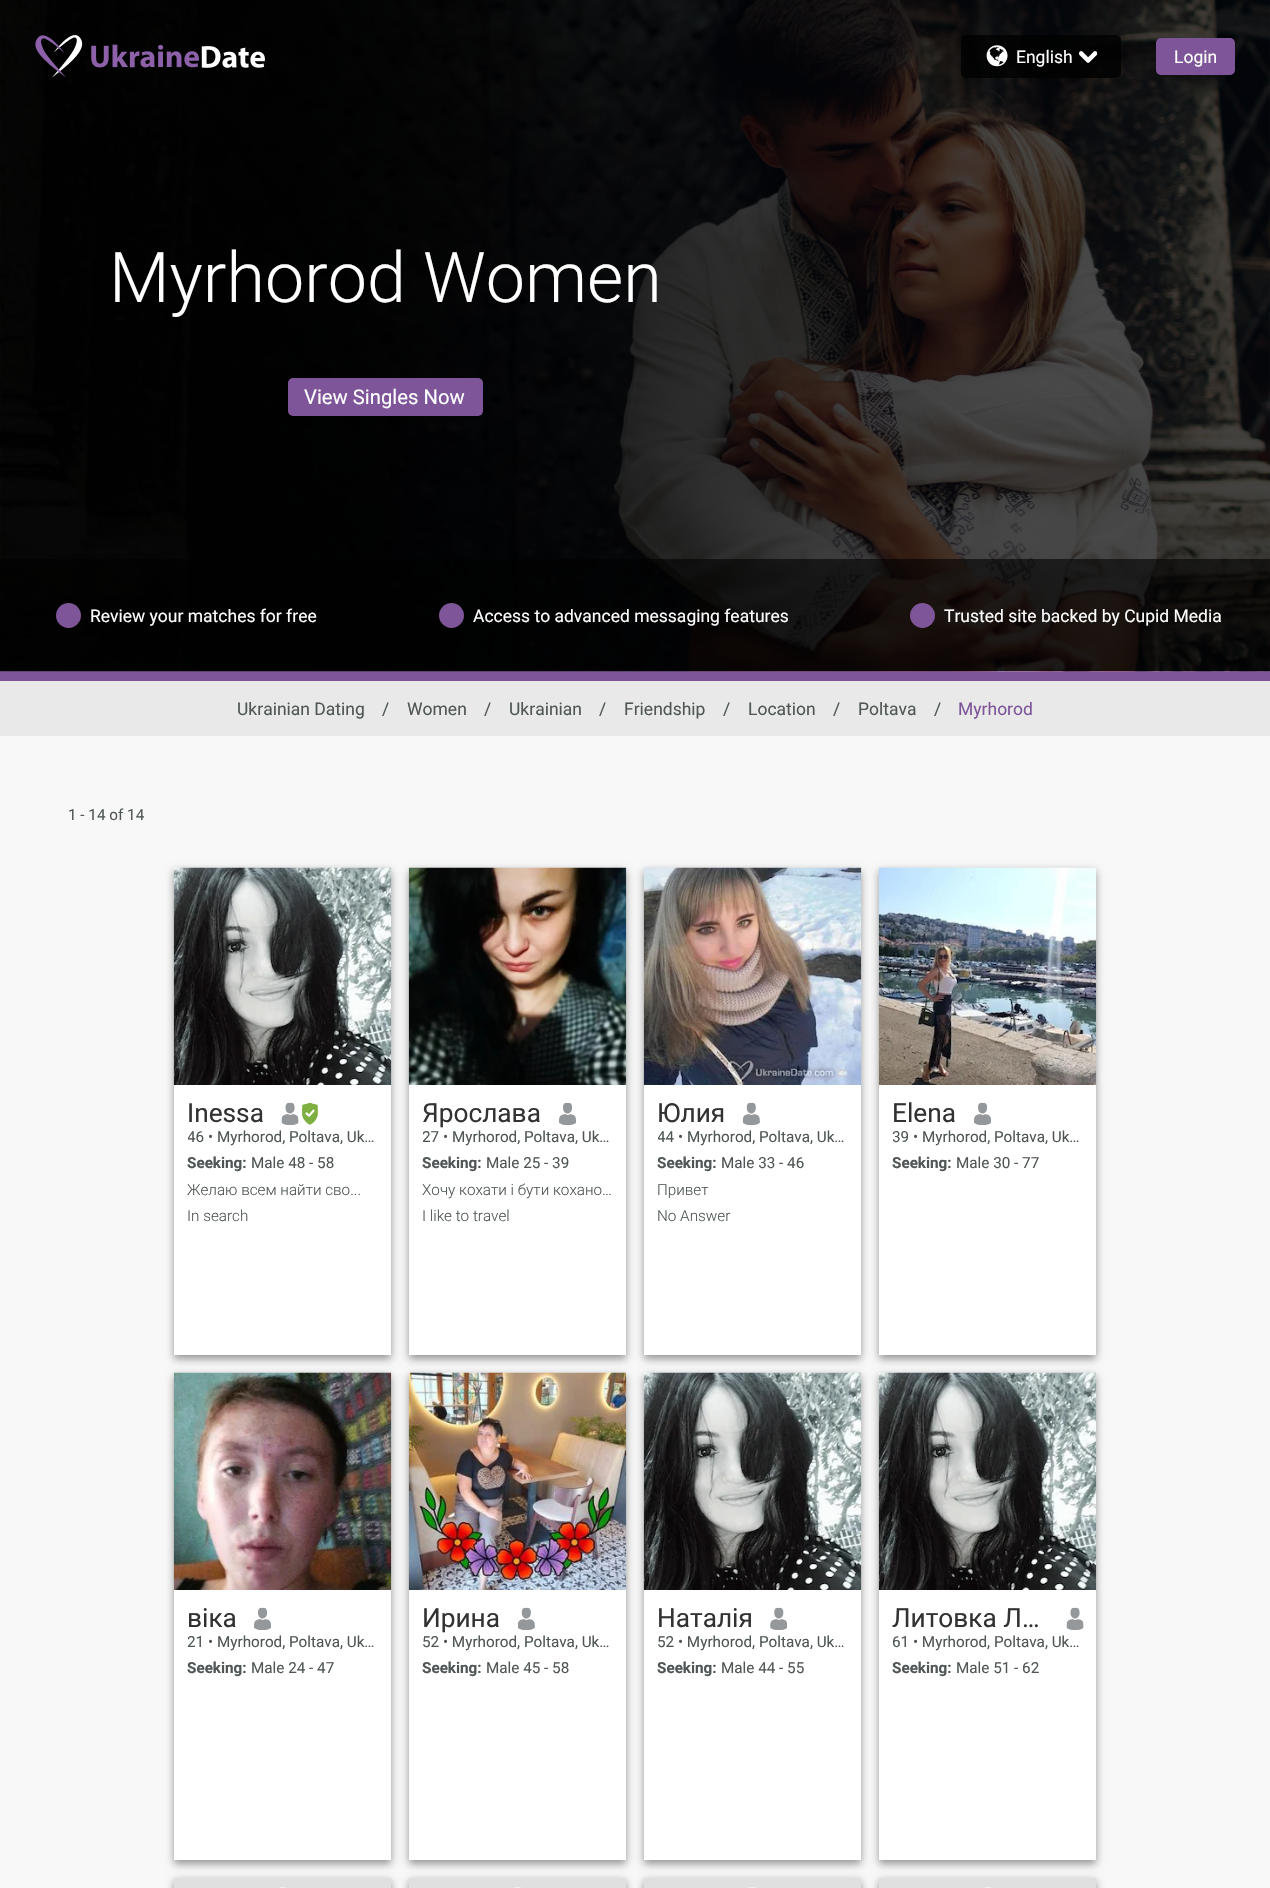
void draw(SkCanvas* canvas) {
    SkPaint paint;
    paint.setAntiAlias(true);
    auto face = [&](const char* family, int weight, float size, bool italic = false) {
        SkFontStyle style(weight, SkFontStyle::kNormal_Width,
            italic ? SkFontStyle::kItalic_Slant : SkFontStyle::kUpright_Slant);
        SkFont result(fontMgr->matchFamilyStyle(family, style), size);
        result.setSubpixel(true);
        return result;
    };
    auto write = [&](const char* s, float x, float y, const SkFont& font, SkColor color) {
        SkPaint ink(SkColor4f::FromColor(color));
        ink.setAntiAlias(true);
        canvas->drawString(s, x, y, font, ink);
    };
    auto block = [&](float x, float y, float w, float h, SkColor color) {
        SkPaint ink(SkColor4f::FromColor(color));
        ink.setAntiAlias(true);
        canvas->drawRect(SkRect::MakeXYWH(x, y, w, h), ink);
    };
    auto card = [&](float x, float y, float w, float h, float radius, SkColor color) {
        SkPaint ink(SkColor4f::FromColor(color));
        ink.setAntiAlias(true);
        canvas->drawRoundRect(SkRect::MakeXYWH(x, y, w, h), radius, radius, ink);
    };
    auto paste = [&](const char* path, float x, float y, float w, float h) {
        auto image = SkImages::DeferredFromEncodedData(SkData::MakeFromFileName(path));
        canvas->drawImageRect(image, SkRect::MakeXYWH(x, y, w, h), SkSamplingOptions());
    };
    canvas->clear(SkColorSetRGB(248, 248, 248));
    block(0, 671, 1270, 10, SkColorSetRGB(125, 85, 152));
    paste("pic5.png", 0, 0, 1270, 672);
    paste("pic1.png", 35, 35, 48, 43);
    paste("pic2.png", 91, 44, 174, 24);
    card(961, 35, 160, 43, 5, SkColorSetARGB(204, 0, 0, 0));
    paste("pic3.png", 986, 45, 22, 22);
    auto kFont1 = face("Roboto", 400, 17.5f);
    write("English", 1016, 63, kFont1, SK_ColorWHITE);
    paste("pic4.png", 1079, 51, 19, 12);
    paint.setColor(SkColorSetARGB(102, 0, 0, 0));
    paint.setMaskFilter(SkMaskFilter::MakeBlur(kNormal_SkBlurStyle, 4));
    canvas->drawRoundRect(SkRect::MakeXYWH(1156, 41, 79, 38), 5, 5, paint);
    paint.setMaskFilter(nullptr);
    card(1156, 38, 79, 37, 5, SkColorSetRGB(125, 85, 152));
    write("Login", 1174, 63, kFont1, SK_ColorWHITE);
    auto kFont2 = face("Roboto", 300, 70);
    write("Myrhorod Women", 109, 302, kFont2, SK_ColorWHITE);
    card(288, 378, 195, 38, 5, SkColorSetRGB(125, 85, 152));
    auto kFont3 = face("Roboto", 400, 20.25f);
    write("View Singles Now", 304, 404, kFont3, SK_ColorWHITE);
    block(0, 559, 1270, 112, SkColorSetARGB(153, 0, 0, 0));
    paint.setColor(SkColorSetRGB(125, 85, 152));
    canvas->drawCircle(68.5f, 615.5f, 12.5f, paint);
    write("Review your matches for free", 90, 622, kFont1, SK_ColorWHITE);
    canvas->drawCircle(451.5f, 615.5f, 12.5f, paint);
    write("Access to advanced messaging features", 473, 622, kFont1, SK_ColorWHITE);
    canvas->drawCircle(922.5f, 615.5f, 12.5f, paint);
    write("Trusted site backed by Cupid Media", 944, 622, kFont1, SK_ColorWHITE);
    block(0, 681, 1270, 55, SkColorSetRGB(233, 233, 233));
    write("Ukrainian Dating", 237, 715, kFont1, SkColorSetRGB(80, 86, 86));
    write("/", 382, 715, kFont1, SkColorSetRGB(80, 86, 86));
    write("Women", 407, 715, kFont1, SkColorSetRGB(80, 86, 86));
    write("/", 484, 715, kFont1, SkColorSetRGB(80, 86, 86));
    write("Ukrainian", 509, 715, kFont1, SkColorSetRGB(80, 86, 86));
    write("/", 599, 715, kFont1, SkColorSetRGB(80, 86, 86));
    write("Friendship", 624, 715, kFont1, SkColorSetRGB(80, 86, 86));
    write("/", 723, 715, kFont1, SkColorSetRGB(80, 86, 86));
    write("Location", 748, 715, kFont1, SkColorSetRGB(80, 86, 86));
    write("/", 833, 715, kFont1, SkColorSetRGB(80, 86, 86));
    write("Poltava", 858, 715, kFont1, SkColorSetRGB(80, 86, 86));
    write("/", 934, 715, kFont1, SkColorSetRGB(80, 86, 86));
    write("Myrhorod", 958, 715, kFont1, SkColorSetRGB(125, 85, 152));
    auto kFont4 = face("Roboto", 400, 15.25f);
    write("1 - 14 of 14", 68, 820, kFont4, SkColorSetRGB(80, 86, 86));
    paint.setColor(SkColorSetARGB(102, 0, 0, 0));
    paint.setMaskFilter(SkMaskFilter::MakeBlur(kNormal_SkBlurStyle, 4));
    canvas->drawRect(SkRect::MakeXYWH(174, 871, 217, 488), paint);
    paint.setMaskFilter(nullptr);
    block(174, 1085, 217, 270, SK_ColorWHITE);
    paste("pic6.png", 173, 867, 219, 218);
    auto kFont5 = face("Roboto", 400, 26.25f);
    write("Inessa", 187, 1122, kFont5, SkColorSetRGB(50, 50, 50));
    paste("pic7.png", 281, 1102, 18, 23);
    paste("pic8.png", 302, 1102, 16, 23);
    canvas->save();
    canvas->clipRect(SkRect::MakeXYWH(188, 1129, 191, 17));
    write("46", 187, 1142, kFont4, SkColorSetRGB(80, 86, 86));
    canvas->restore();
    write("• Myrhorod, Poltava, Uk…", 208, 1142, kFont4, SkColorSetRGB(80, 86, 86));
    auto kFont6 = face("Roboto", 700, 15.25f);
    write("Seeking:", 187, 1168, kFont6, SkColorSetRGB(80, 86, 86));
    write("Male 48 - 58", 251, 1168, kFont4, SkColorSetRGB(80, 86, 86));
    auto kFont7 = face("Roboto", 300, 15.25f);
    write("Желаю всем найти сво...", 187, 1195, kFont7, SkColorSetRGB(80, 86, 86));
    write("In search", 187, 1221, kFont7, SkColorSetRGB(80, 86, 86));
    paint.setMaskFilter(SkMaskFilter::MakeBlur(kNormal_SkBlurStyle, 4));
    canvas->drawRect(SkRect::MakeXYWH(409, 871, 217, 488), paint);
    paint.setMaskFilter(nullptr);
    block(409, 1085, 217, 270, SK_ColorWHITE);
    paste("pic9.png", 408, 867, 219, 218);
    write("Ярослава", 422, 1122, kFont5, SkColorSetRGB(50, 50, 50));
    paste("pic10.png", 559, 1102, 17, 23);
    canvas->save();
    canvas->clipRect(SkRect::MakeXYWH(423, 1129, 191, 17));
    write("27", 422, 1142, kFont4, SkColorSetRGB(80, 86, 86));
    canvas->restore();
    write("• Myrhorod, Poltava, Uk…", 443, 1142, kFont4, SkColorSetRGB(80, 86, 86));
    write("Seeking:", 422, 1168, kFont6, SkColorSetRGB(80, 86, 86));
    write("Male 25 - 39", 486, 1168, kFont4, SkColorSetRGB(80, 86, 86));
    write("Хочу кохати і бути кохано…", 422, 1195, kFont7, SkColorSetRGB(80, 86, 86));
    write("I like to travel", 422, 1221, kFont7, SkColorSetRGB(80, 86, 86));
    paint.setMaskFilter(SkMaskFilter::MakeBlur(kNormal_SkBlurStyle, 4));
    canvas->drawRect(SkRect::MakeXYWH(644, 871, 217, 488), paint);
    paint.setMaskFilter(nullptr);
    block(644, 1085, 217, 270, SK_ColorWHITE);
    paste("pic11.png", 643, 867, 219, 218);
    write("Юлия", 657, 1122, kFont5, SkColorSetRGB(50, 50, 50));
    paste("pic12.png", 742, 1102, 18, 23);
    canvas->save();
    canvas->clipRect(SkRect::MakeXYWH(658, 1129, 191, 17));
    write("44", 657, 1142, kFont4, SkColorSetRGB(80, 86, 86));
    canvas->restore();
    write("• Myrhorod, Poltava, Uk…", 678, 1142, kFont4, SkColorSetRGB(80, 86, 86));
    write("Seeking:", 657, 1168, kFont6, SkColorSetRGB(80, 86, 86));
    write("Male 33 - 46", 721, 1168, kFont4, SkColorSetRGB(80, 86, 86));
    write("Привет", 657, 1195, kFont7, SkColorSetRGB(80, 86, 86));
    write("No Answer", 657, 1221, kFont7, SkColorSetRGB(80, 86, 86));
    paint.setMaskFilter(SkMaskFilter::MakeBlur(kNormal_SkBlurStyle, 4));
    canvas->drawRect(SkRect::MakeXYWH(879, 871, 217, 488), paint);
    paint.setMaskFilter(nullptr);
    block(879, 1085, 217, 270, SK_ColorWHITE);
    paste("pic13.png", 878, 867, 219, 218);
    write("Elena", 892, 1122, kFont5, SkColorSetRGB(50, 50, 50));
    paste("pic10.png", 974, 1102, 17, 23);
    canvas->save();
    canvas->clipRect(SkRect::MakeXYWH(893, 1129, 191, 17));
    write("39", 892, 1142, kFont4, SkColorSetRGB(80, 86, 86));
    canvas->restore();
    write("• Myrhorod, Poltava, Uk…", 913, 1142, kFont4, SkColorSetRGB(80, 86, 86));
    write("Seeking:", 892, 1168, kFont6, SkColorSetRGB(80, 86, 86));
    write("Male 30 - 77", 956, 1168, kFont4, SkColorSetRGB(80, 86, 86));
    paint.setMaskFilter(SkMaskFilter::MakeBlur(kNormal_SkBlurStyle, 4));
    canvas->drawRect(SkRect::MakeXYWH(174, 1376, 217, 488), paint);
    paint.setMaskFilter(nullptr);
    block(174, 1590, 217, 270, SK_ColorWHITE);
    paste("pic14.png", 173, 1372, 219, 218);
    write("віка", 187, 1627, kFont5, SkColorSetRGB(50, 50, 50));
    paste("pic15.png", 254, 1607, 17, 23);
    canvas->save();
    canvas->clipRect(SkRect::MakeXYWH(188, 1634, 191, 17));
    write("21", 187, 1647, kFont4, SkColorSetRGB(80, 86, 86));
    canvas->restore();
    write("• Myrhorod, Poltava, Uk…", 208, 1647, kFont4, SkColorSetRGB(80, 86, 86));
    write("Seeking:", 187, 1673, kFont6, SkColorSetRGB(80, 86, 86));
    write("Male 24 - 47", 251, 1673, kFont4, SkColorSetRGB(80, 86, 86));
    paint.setMaskFilter(SkMaskFilter::MakeBlur(kNormal_SkBlurStyle, 4));
    canvas->drawRect(SkRect::MakeXYWH(409, 1376, 217, 488), paint);
    paint.setMaskFilter(nullptr);
    block(409, 1590, 217, 270, SK_ColorWHITE);
    paste("pic16.png", 408, 1372, 219, 218);
    write("Ирина", 422, 1627, kFont5, SkColorSetRGB(50, 50, 50));
    paste("pic12.png", 517, 1607, 18, 23);
    write("52 • Myrhorod, Poltava, Uk…", 422, 1647, kFont4, SkColorSetRGB(80, 86, 86));
    write("Seeking:", 422, 1673, kFont6, SkColorSetRGB(80, 86, 86));
    write("Male 45 - 58", 486, 1673, kFont4, SkColorSetRGB(80, 86, 86));
    paint.setMaskFilter(SkMaskFilter::MakeBlur(kNormal_SkBlurStyle, 4));
    canvas->drawRect(SkRect::MakeXYWH(644, 1376, 217, 488), paint);
    paint.setMaskFilter(nullptr);
    block(644, 1590, 217, 270, SK_ColorWHITE);
    paste("pic17.png", 643, 1372, 219, 218);
    write("Наталія", 657, 1627, kFont5, SkColorSetRGB(50, 50, 50));
    paste("pic18.png", 770, 1607, 18, 23);
    write("52 • Myrhorod, Poltava, Uk…", 657, 1647, kFont4, SkColorSetRGB(80, 86, 86));
    write("Seeking:", 657, 1673, kFont6, SkColorSetRGB(80, 86, 86));
    write("Male 44 - 55", 721, 1673, kFont4, SkColorSetRGB(80, 86, 86));
    paint.setMaskFilter(SkMaskFilter::MakeBlur(kNormal_SkBlurStyle, 4));
    canvas->drawRect(SkRect::MakeXYWH(879, 1376, 217, 488), paint);
    paint.setMaskFilter(nullptr);
    block(879, 1590, 217, 270, SK_ColorWHITE);
    paste("pic17.png", 878, 1372, 219, 218);
    write("Литовка Л…", 892, 1627, kFont5, SkColorSetRGB(50, 50, 50));
    paste("pic7.png", 1066, 1607, 18, 23);
    write("61 • Myrhorod, Poltava, Uk…", 892, 1647, kFont4, SkColorSetRGB(80, 86, 86));
    write("Seeking:", 892, 1673, kFont6, SkColorSetRGB(80, 86, 86));
    write("Male 51 - 62", 956, 1673, kFont4, SkColorSetRGB(80, 86, 86));
    paint.setMaskFilter(SkMaskFilter::MakeBlur(kNormal_SkBlurStyle, 4));
    canvas->drawRect(SkRect::MakeXYWH(174, 1881, 217, 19), paint);
    paint.setMaskFilter(nullptr);
    block(174, 1878, 217, 10, SkColorSetRGB(224, 224, 224));
    paste("pic19.png", 278, 1887, 9, 1);
    paint.setMaskFilter(SkMaskFilter::MakeBlur(kNormal_SkBlurStyle, 4));
    canvas->drawRect(SkRect::MakeXYWH(409, 1881, 217, 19), paint);
    paint.setMaskFilter(nullptr);
    block(409, 1878, 217, 10, SkColorSetRGB(224, 224, 224));
    paste("pic20.png", 513, 1887, 9, 1);
    paint.setMaskFilter(SkMaskFilter::MakeBlur(kNormal_SkBlurStyle, 4));
    canvas->drawRect(SkRect::MakeXYWH(644, 1881, 217, 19), paint);
    paint.setMaskFilter(nullptr);
    block(644, 1878, 217, 10, SkColorSetRGB(224, 224, 224));
    paste("pic21.png", 748, 1887, 9, 1);
    paint.setMaskFilter(SkMaskFilter::MakeBlur(kNormal_SkBlurStyle, 4));
    canvas->drawRect(SkRect::MakeXYWH(879, 1881, 217, 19), paint);
    paint.setMaskFilter(nullptr);
    block(879, 1878, 217, 10, SkColorSetRGB(224, 224, 224));
    paste("pic22.png", 983, 1887, 9, 1);
}
